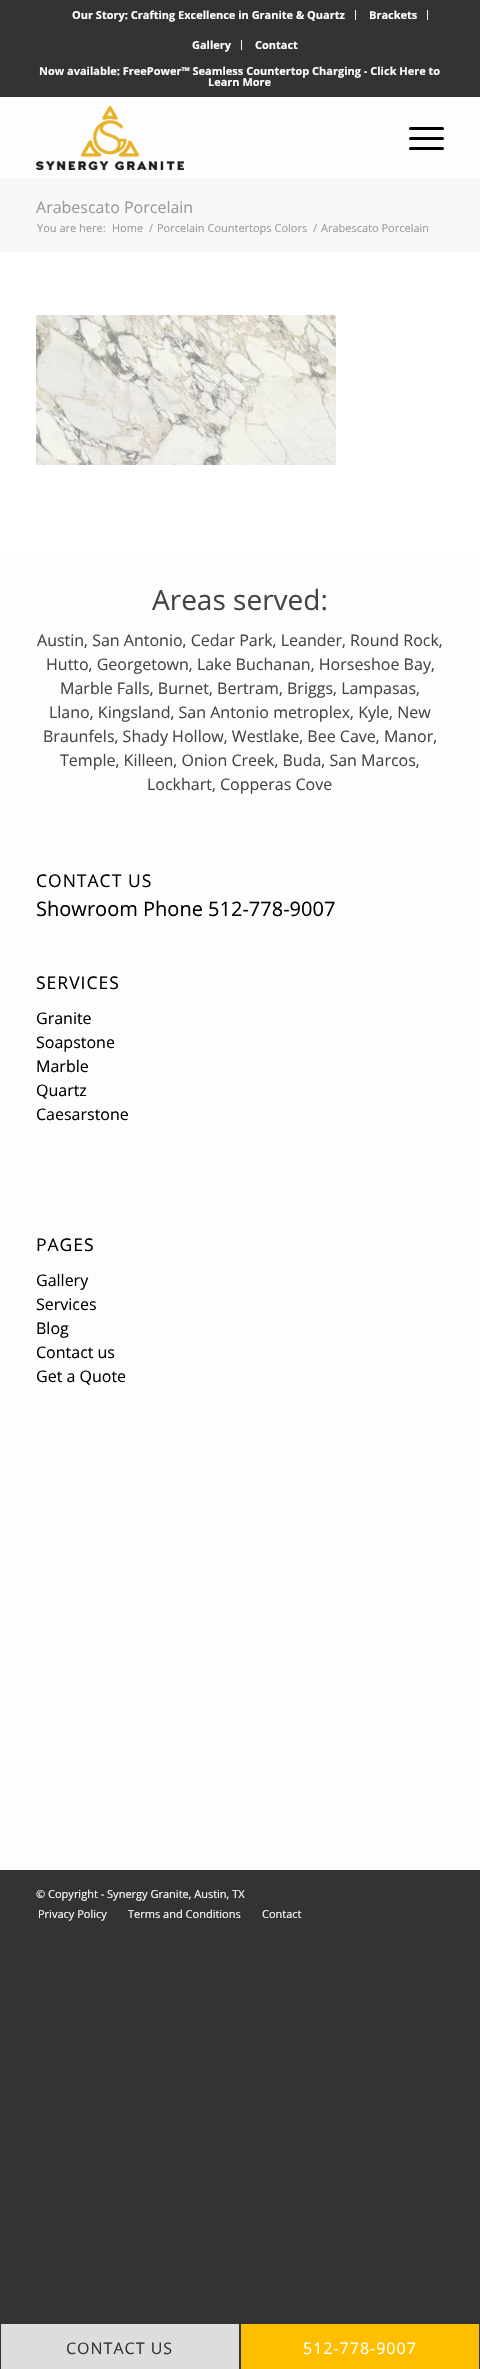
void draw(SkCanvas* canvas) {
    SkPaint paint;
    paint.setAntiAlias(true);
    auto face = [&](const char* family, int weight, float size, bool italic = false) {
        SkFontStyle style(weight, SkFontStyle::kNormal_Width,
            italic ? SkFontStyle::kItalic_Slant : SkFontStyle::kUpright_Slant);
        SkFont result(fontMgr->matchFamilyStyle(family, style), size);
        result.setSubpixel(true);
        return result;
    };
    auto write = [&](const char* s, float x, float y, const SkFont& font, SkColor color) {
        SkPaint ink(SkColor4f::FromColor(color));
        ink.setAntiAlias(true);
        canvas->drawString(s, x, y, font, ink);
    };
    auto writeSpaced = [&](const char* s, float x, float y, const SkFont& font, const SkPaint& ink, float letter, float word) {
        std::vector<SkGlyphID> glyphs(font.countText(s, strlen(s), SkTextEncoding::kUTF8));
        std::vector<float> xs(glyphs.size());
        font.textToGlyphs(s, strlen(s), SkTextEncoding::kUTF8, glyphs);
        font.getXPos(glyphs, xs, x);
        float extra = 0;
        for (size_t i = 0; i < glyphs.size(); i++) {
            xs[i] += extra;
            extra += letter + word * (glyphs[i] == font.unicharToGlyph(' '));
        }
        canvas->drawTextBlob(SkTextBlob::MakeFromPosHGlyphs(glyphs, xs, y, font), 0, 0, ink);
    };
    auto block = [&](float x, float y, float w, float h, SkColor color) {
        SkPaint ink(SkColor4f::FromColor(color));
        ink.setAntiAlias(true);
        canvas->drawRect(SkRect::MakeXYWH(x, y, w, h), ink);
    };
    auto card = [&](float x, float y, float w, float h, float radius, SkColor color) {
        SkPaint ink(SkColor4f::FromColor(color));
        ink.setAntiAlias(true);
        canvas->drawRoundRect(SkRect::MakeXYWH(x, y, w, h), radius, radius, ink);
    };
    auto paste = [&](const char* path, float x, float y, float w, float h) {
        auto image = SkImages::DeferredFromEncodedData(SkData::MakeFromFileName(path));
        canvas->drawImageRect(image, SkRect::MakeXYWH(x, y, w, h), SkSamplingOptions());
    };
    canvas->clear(SkColorSetRGB(51, 51, 51));
    block(0, 97, 480, 1, SkColorSetRGB(248, 248, 248));
    block(355, 10, 1, 10, SkColorSetRGB(248, 248, 248));
    auto kFont1 = face("Open Sans", 700, 11);
    write("Our Story: Crafting Excellence in Granite & Quartz", 72, 19, kFont1, SK_ColorWHITE);
    block(427, 10, 1, 10, SkColorSetRGB(248, 248, 248));
    write("Brackets", 369, 19, kFont1, SK_ColorWHITE);
    block(241, 40, 1, 10, SkColorSetRGB(248, 248, 248));
    write("Gallery", 192, 49, kFont1, SK_ColorWHITE);
    write("Contact", 255, 49, kFont1, SK_ColorWHITE);
    write("Now available: FreePower™ Seamless Countertop Charging - Click Here to", 39, 75, kFont1, SK_ColorWHITE);
    write("Learn More", 208, 86, kFont1, SK_ColorWHITE);
    block(0, 98, 480, 80, SkColorSetRGB(253, 253, 253));
    paste("pic1.png", 36, 106, 148, 64);
    card(409, 137, 35, 3, 1.5f, SK_ColorBLACK);
    card(409, 127, 35, 3, 1.5f, SK_ColorBLACK);
    card(409, 147, 35, 3, 1.5f, SK_ColorBLACK);
    block(0, 555, 480, 1315, SkColorSetRGB(253, 253, 253));
    block(0, 178, 480, 74, SkColorSetRGB(248, 248, 248));
    auto kFont2 = face("Open Sans", 400, 16);
    write("Arabescato Porcelain", 36, 213, kFont2, SkColorSetRGB(153, 153, 153));
    auto kFont3 = face("Open Sans", 400, 11);
    write("You are here:", 37, 232, kFont3, SkColorSetRGB(153, 153, 153));
    write("Home", 112, 232, kFont3, SkColorSetRGB(153, 153, 153));
    write("/", 149, 232, kFont3, SkColorSetRGB(153, 153, 153));
    write("Porcelain Countertops Colors", 157, 232, kFont3, SkColorSetRGB(153, 153, 153));
    write("/", 313, 232, kFont3, SkColorSetRGB(153, 153, 153));
    write("Arabescato Porcelain", 321, 232, kFont3, SkColorSetRGB(153, 153, 153));
    block(0, 252, 480, 303, SK_ColorWHITE);
    paste("pic2.png", 36, 315, 300, 150);
    auto kFont4 = face("Open Sans", 400, 28);
    write("Areas served:", 152, 610, kFont4, SkColorSetRGB(68, 68, 68));
    write("Austin, San Antonio, Cedar Park, Leander, Round Rock,", 37, 646, kFont2, SkColorSetRGB(68, 68, 68));
    write("Hutto, Georgetown, Lake Buchanan, Horseshoe Bay,", 46, 670, kFont2, SkColorSetRGB(68, 68, 68));
    write("Marble Falls, Burnet, Bertram, Briggs, Lampasas,", 60, 694, kFont2, SkColorSetRGB(68, 68, 68));
    write("Llano, Kingsland, San Antonio metroplex, Kyle, New", 49, 718, kFont2, SkColorSetRGB(68, 68, 68));
    write("Braunfels, Shady Hollow, Westlake, Bee Cave, Manor,", 43, 742, kFont2, SkColorSetRGB(68, 68, 68));
    write("Temple, Killeen, Onion Creek, Buda, San Marcos,", 60, 766, kFont2, SkColorSetRGB(68, 68, 68));
    write("Lockhart, Copperas Cove", 147, 790, kFont2, SkColorSetRGB(68, 68, 68));
    auto kFont5 = face("Open Sans", 400, 17.5f);
    paint.setColor(SK_ColorBLACK);
    writeSpaced("CONTACT US", 36, 887, kFont5, paint, 1, 0);
    auto kFont6 = face("Open Sans", 400, 20);
    write("Showroom Phone 512-778-9007", 36, 916, kFont6, SK_ColorBLACK);
    writeSpaced("SERVICES", 36, 989, kFont5, paint, 1, 0);
    write("Granite", 36, 1024, kFont2, SK_ColorBLACK);
    write("Soapstone", 36, 1048, kFont2, SK_ColorBLACK);
    write("Marble", 36, 1072, kFont2, SK_ColorBLACK);
    write("Quartz", 36, 1096, kFont2, SK_ColorBLACK);
    write("Caesarstone", 36, 1120, kFont2, SK_ColorBLACK);
    writeSpaced("PAGES", 36, 1251, kFont5, paint, 1, 0);
    write("Gallery", 36, 1286, kFont2, SK_ColorBLACK);
    write("Services", 36, 1310, kFont2, SK_ColorBLACK);
    write("Blog", 36, 1334, kFont2, SK_ColorBLACK);
    write("Contact us", 36, 1358, kFont2, SK_ColorBLACK);
    write("Get a Quote", 36, 1382, kFont2, SK_ColorBLACK);
    write("© Copyright - Synergy Granite, Austin, TX", 36, 1898, kFont3, SK_ColorWHITE);
    write("Privacy Policy", 38, 1918, kFont3, SK_ColorWHITE);
    write("Terms and Conditions", 128, 1918, kFont3, SK_ColorWHITE);
    write("Contact", 262, 1918, kFont3, SK_ColorWHITE);
    block(1, 2324, 238, 45, SkColorSetRGB(221, 221, 221));
    paint.setColor(SkColorSetRGB(49, 49, 49));
    writeSpaced("CONTACT US", 66, 2354, kFont2, paint, 1, 0);
    block(241, 2324, 238, 45, SkColorSetRGB(255, 191, 0));
    paint.setColor(SK_ColorWHITE);
    writeSpaced("512-778-9007", 303, 2354, kFont2, paint, 1, 0);
}
